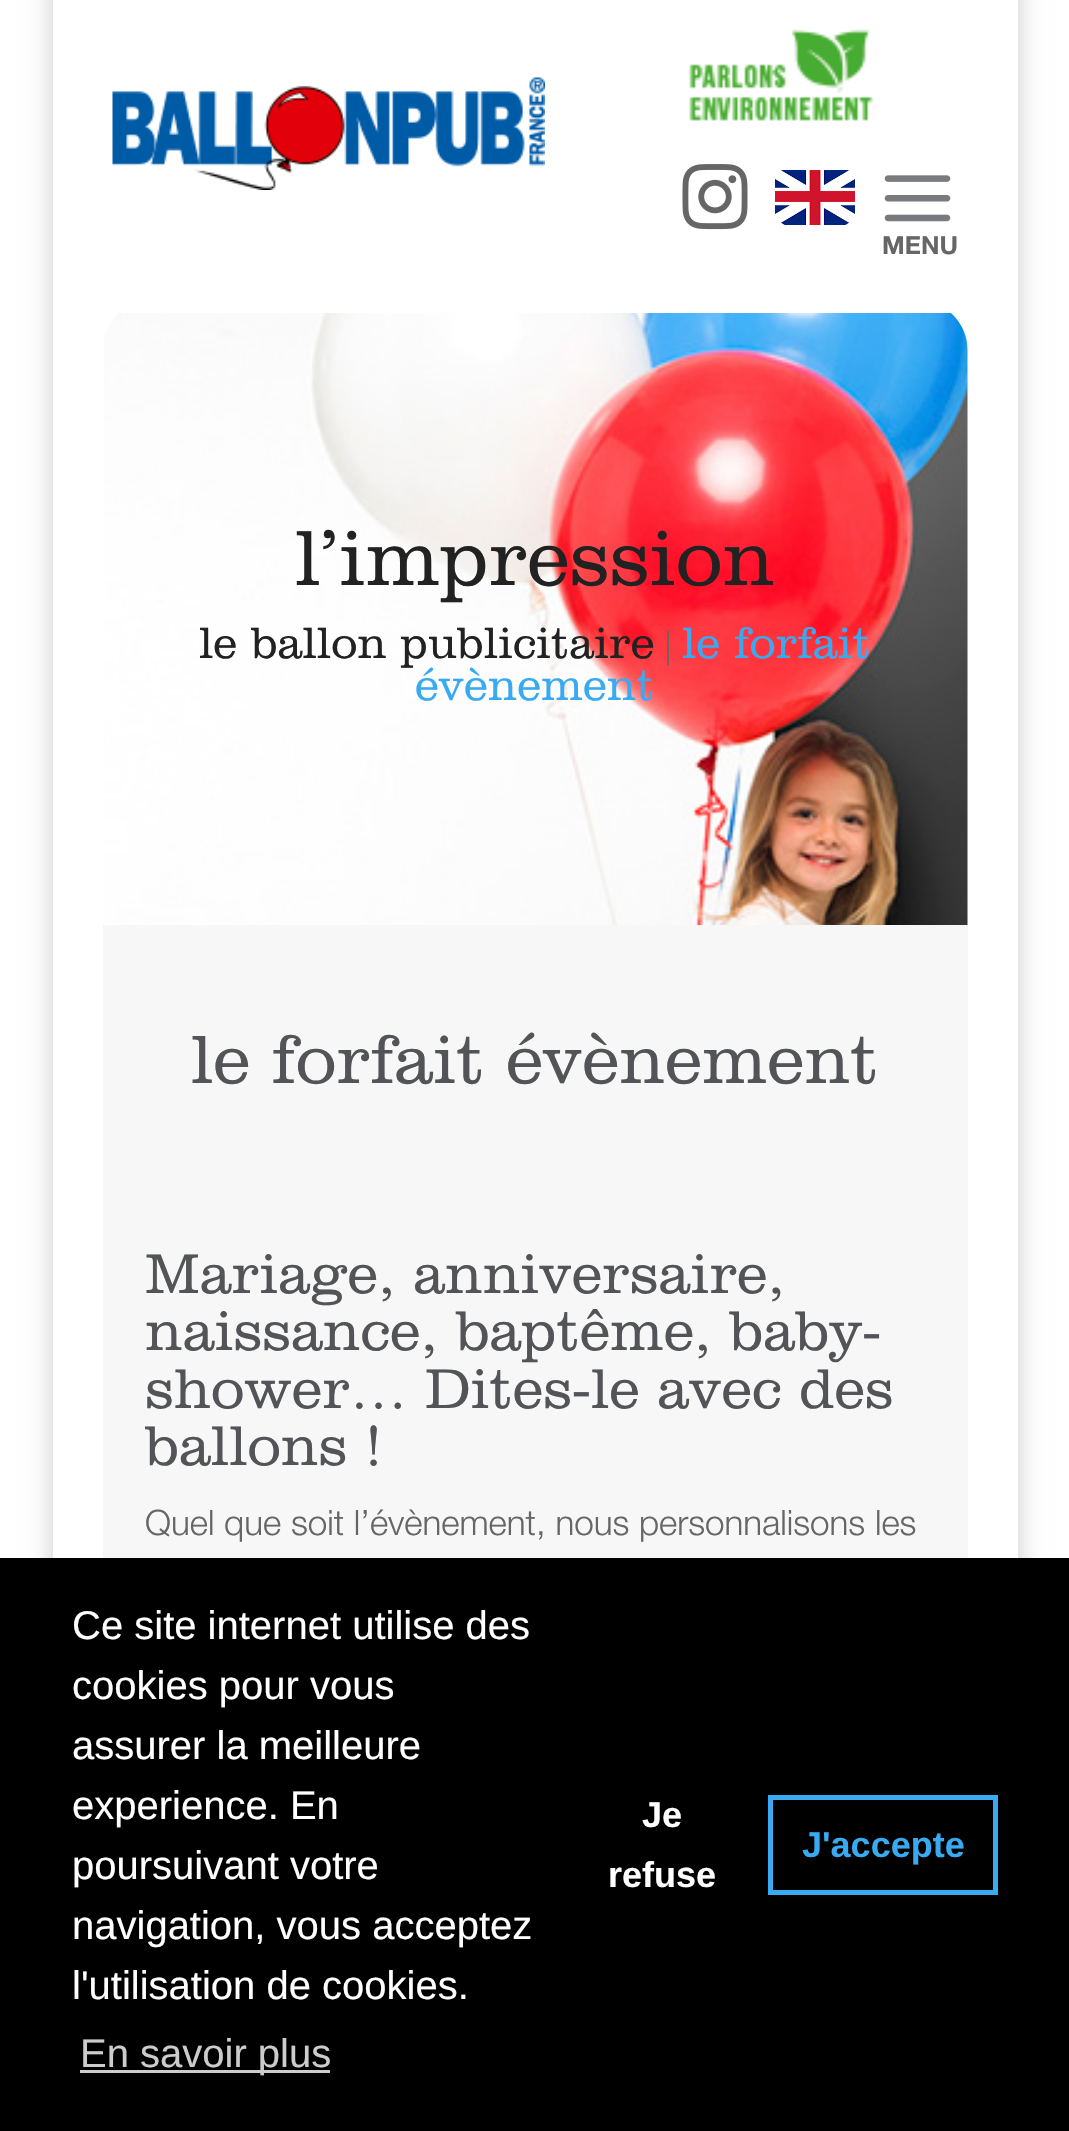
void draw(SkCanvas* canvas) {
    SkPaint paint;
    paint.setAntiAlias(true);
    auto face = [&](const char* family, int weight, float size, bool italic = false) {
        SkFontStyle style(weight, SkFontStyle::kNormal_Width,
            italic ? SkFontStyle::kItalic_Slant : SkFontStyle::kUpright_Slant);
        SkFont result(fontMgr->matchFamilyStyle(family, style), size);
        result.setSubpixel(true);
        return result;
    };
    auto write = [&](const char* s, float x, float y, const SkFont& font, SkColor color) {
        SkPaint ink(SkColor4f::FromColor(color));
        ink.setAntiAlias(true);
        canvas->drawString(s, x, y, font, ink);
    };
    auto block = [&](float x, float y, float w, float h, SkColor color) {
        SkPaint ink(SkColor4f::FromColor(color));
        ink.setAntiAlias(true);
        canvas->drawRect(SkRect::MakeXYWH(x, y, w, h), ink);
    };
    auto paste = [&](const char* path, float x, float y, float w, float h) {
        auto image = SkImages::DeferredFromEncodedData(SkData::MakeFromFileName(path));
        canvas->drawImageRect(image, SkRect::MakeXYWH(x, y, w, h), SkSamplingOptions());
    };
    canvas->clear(SK_ColorWHITE);
    canvas->save();
    canvas->clipPath(SkPathBuilder(SkPathFillType::kEvenOdd).moveTo(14, 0).lineTo(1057, 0).lineTo(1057, 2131).lineTo(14, 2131).close().moveTo(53, -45).lineTo(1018, -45).lineTo(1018, 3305).lineTo(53, 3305).close().detach(), true);
    paint.setColor(SkColorSetARGB(51, 0, 0, 0));
    paint.setMaskFilter(SkMaskFilter::MakeBlur(kNormal_SkBlurStyle, 12.5f));
    canvas->drawRect(SkRect::MakeXYWH(53, -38, 965, 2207), paint);
    paint.setMaskFilter(nullptr);
    canvas->restore();
    paste("pic1.png", 112, 77, 433, 113);
    paste("pic2.png", 689, 29, 185, 92);
    paste("pic3.png", 682, 164, 66, 66);
    paste("pic4.png", 775, 170, 80, 55);
    paste("pic5.png", 884, 175, 67, 47);
    auto kFont1 = face("Helvetica Neue", 700, 25);
    write("MENU", 882, 254, kFont1, SkColorSetRGB(102, 102, 102));
    block(1017, 0, 1, 925, SK_ColorWHITE);
    paste("pic6.png", 104, 313, 864, 612);
    auto kFont2 = face("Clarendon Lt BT", 300, 80);
    write("l’impression", 295, 585, kFont2, SkColorSetRGB(34, 34, 34));
    auto kFont3 = face("Clarendon Lt BT", 300, 45);
    write("le ballon publicitaire", 199, 658, kFont3, SkColorSetRGB(34, 34, 34));
    auto kFont4 = face("Helvetica Neue", 300, 35);
    write("|", 664, 658, kFont4, SkColorSetRGB(102, 102, 102));
    write("le forfait", 682, 658, kFont3, SkColorSetRGB(56, 170, 242));
    write("évènement", 415, 700, kFont3, SkColorSetRGB(56, 170, 242));
    block(103, 925, 865, 633, SkColorSetRGB(247, 247, 247));
    auto kFont5 = face("Clarendon Lt BT", 300, 70);
    write("le forfait évènement", 191, 1083, kFont5, SkColorSetRGB(83, 84, 87));
    auto kFont6 = face("Clarendon Lt BT", 300, 57.5f);
    write("Mariage, anniversaire,", 145, 1293, kFont6, SkColorSetRGB(83, 84, 87));
    write("naissance, baptême, baby-", 145, 1350, kFont6, SkColorSetRGB(83, 84, 87));
    write("shower… Dites-le avec des", 145, 1408, kFont6, SkColorSetRGB(83, 84, 87));
    write("ballons !", 145, 1465, kFont6, SkColorSetRGB(83, 84, 87));
    write("Quel que soit l’évènement, nous personnalisons les", 145, 1535, kFont4, SkColorSetRGB(102, 102, 102));
    block(0, 1558, 1069, 573, SK_ColorBLACK);
    auto kFont7 = face("Liberation Sans", 400, 40);
    write("Ce site internet utilise des", 72, 1639, kFont7, SK_ColorWHITE);
    write("cookies pour vous", 72, 1699, kFont7, SK_ColorWHITE);
    write("assurer la meilleure", 72, 1759, kFont7, SK_ColorWHITE);
    write("experience. En", 72, 1819, kFont7, SK_ColorWHITE);
    write("poursuivant votre", 72, 1879, kFont7, SK_ColorWHITE);
    write("navigation, vous acceptez", 72, 1939, kFont7, SK_ColorWHITE);
    write("l'utilisation de cookies.", 72, 1999, kFont7, SK_ColorWHITE);
    block(80, 2070, 250, 3, SkColorSetRGB(204, 204, 204));
    write("En savoir plus", 80, 2067, kFont7, SkColorSetRGB(204, 204, 204));
    auto kFont8 = face("Liberation Sans", 700, 36);
    write("Je", 642, 1827, kFont8, SK_ColorWHITE);
    write("refuse", 608, 1887, kFont8, SK_ColorWHITE);
    paint.setStyle(SkPaint::kStroke_Style);
    paint.setStrokeWidth(5);
    paint.setColor(SkColorSetRGB(56, 170, 242));
    canvas->drawRect(SkRect::MakeXYWH(770.5f, 1797.5f, 225, 95), paint);
    write("J'accepte", 802, 1857, kFont8, SkColorSetRGB(56, 170, 242));
}
